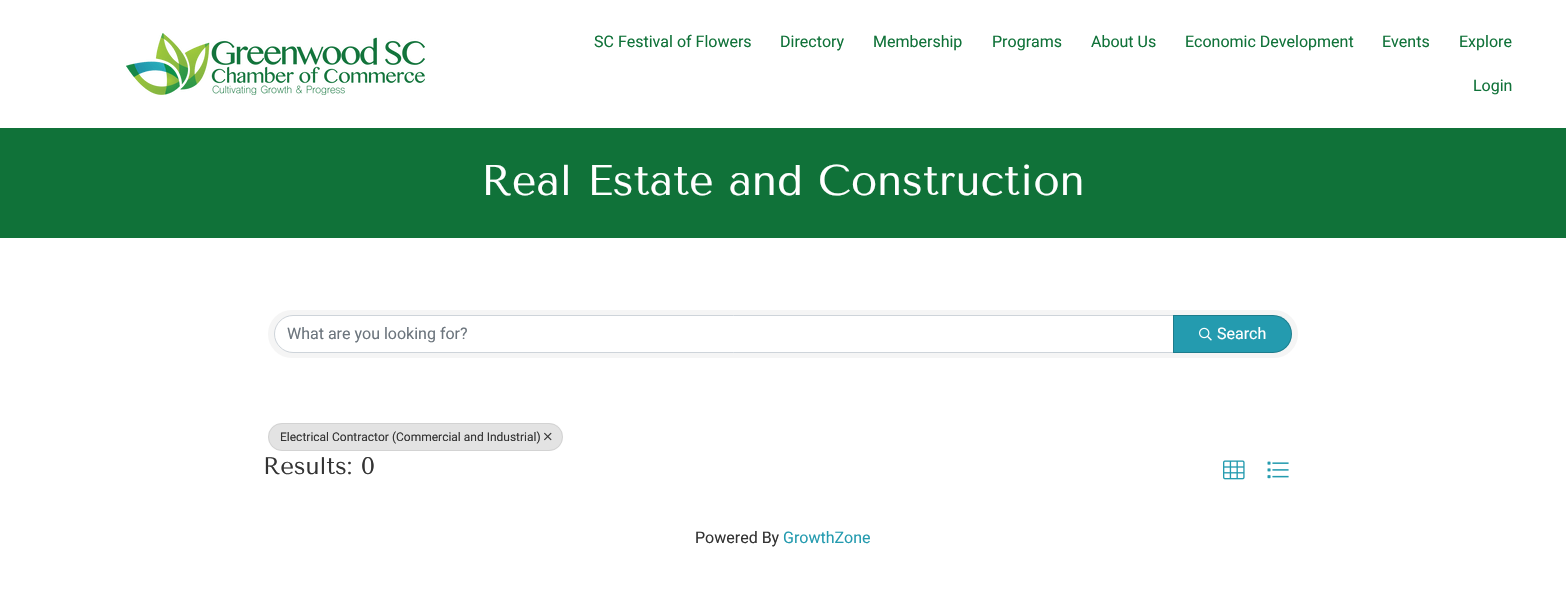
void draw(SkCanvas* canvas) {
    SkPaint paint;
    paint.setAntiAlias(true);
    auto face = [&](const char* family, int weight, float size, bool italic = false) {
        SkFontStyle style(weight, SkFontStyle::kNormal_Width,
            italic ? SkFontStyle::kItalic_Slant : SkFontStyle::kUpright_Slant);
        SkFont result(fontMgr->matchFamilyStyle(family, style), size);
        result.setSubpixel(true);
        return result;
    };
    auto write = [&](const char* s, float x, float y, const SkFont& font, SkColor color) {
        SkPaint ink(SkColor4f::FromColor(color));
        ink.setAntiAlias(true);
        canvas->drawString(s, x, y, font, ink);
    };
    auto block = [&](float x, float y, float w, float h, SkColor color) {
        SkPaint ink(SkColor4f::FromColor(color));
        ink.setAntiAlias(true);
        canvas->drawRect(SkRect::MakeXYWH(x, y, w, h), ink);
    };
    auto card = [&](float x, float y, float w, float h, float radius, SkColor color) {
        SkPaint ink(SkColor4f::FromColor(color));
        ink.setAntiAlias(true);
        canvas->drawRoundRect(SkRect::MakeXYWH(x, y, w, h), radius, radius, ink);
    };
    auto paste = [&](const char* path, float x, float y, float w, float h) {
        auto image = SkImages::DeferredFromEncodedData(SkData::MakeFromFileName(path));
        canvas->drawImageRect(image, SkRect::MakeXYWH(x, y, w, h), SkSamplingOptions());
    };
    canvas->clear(SK_ColorWHITE);
    paste("pic1.png", 126, 33, 299, 62);
    auto kFont1 = face("Roboto", 400, 16);
    write("SC Festival of Flowers", 594, 47, kFont1, SkColorSetRGB(16, 114, 57));
    write("Directory", 780, 47, kFont1, SkColorSetRGB(16, 114, 57));
    write("Membership", 873, 47, kFont1, SkColorSetRGB(16, 114, 57));
    write("Programs", 992, 47, kFont1, SkColorSetRGB(16, 114, 57));
    write("About Us", 1091, 47, kFont1, SkColorSetRGB(16, 114, 57));
    write("Economic Development", 1185, 47, kFont1, SkColorSetRGB(16, 114, 57));
    write("Events", 1382, 47, kFont1, SkColorSetRGB(16, 114, 57));
    write("Explore", 1459, 47, kFont1, SkColorSetRGB(16, 114, 57));
    write("Login", 1473, 91, kFont1, SkColorSetRGB(16, 114, 57));
    block(0, 128, 1566, 110, SkColorSetRGB(16, 114, 57));
    auto kFont2 = face("Tenor Sans", 400, 43);
    write("Real Estate and Construction", 481, 195, kFont2, SK_ColorWHITE);
    card(268, 310, 1030, 48, 24, SkColorSetRGB(245, 245, 245));
    paint.setColor(SK_ColorWHITE);
    canvas->drawPath(SkPathBuilder().moveTo(293, 315.5f).lineTo(1173.5f, 315.5f).lineTo(1173.5f, 352.5f).lineTo(293, 352.5f).cubicTo(283, 352.5f, 274.5f, 344, 274.5f, 334).cubicTo(274.5f, 324, 283, 315.5f, 293, 315.5f).close().detach(), paint);
    paint.setStyle(SkPaint::kStroke_Style);
    paint.setStrokeWidth(1);
    paint.setColor(SkColorSetRGB(206, 212, 218));
    canvas->drawPath(SkPathBuilder().moveTo(293, 315.5f).lineTo(1173.5f, 315.5f).lineTo(1173.5f, 352.5f).lineTo(293, 352.5f).cubicTo(283, 352.5f, 274.5f, 344, 274.5f, 334).cubicTo(274.5f, 324, 283, 315.5f, 293, 315.5f).close().detach(), paint);
    write("What are you looking for?", 287, 339, kFont1, SkColorSetRGB(108, 117, 125));
    paint.setStyle(SkPaint::kFill_Style);
    paint.setColor(SkColorSetRGB(36, 155, 175));
    canvas->drawPath(SkPathBuilder().moveTo(1173, 315).lineTo(1273, 315).cubicTo(1283.5f, 315, 1292, 323.5f, 1292, 334).cubicTo(1292, 344.5f, 1283.5f, 353, 1273, 353).lineTo(1173, 353).close().detach(), paint);
    paint.setStyle(SkPaint::kStroke_Style);
    paint.setColor(SkColorSetARGB(51, 0, 0, 0));
    canvas->drawPath(SkPathBuilder().moveTo(1173.5f, 315.5f).lineTo(1273, 315.5f).cubicTo(1283, 315.5f, 1291.5f, 324, 1291.5f, 334).cubicTo(1291.5f, 344, 1283, 352.5f, 1273, 352.5f).lineTo(1173.5f, 352.5f).close().detach(), paint);
    paste("pic2.png", 1199, 327, 13, 14);
    write("Search", 1217, 339, kFont1, SK_ColorWHITE);
    card(268, 423, 295, 28, 14, SkColorSetRGB(227, 227, 227));
    paint.setColor(SkColorSetARGB(18, 0, 0, 0));
    canvas->drawRoundRect(SkRect::MakeXYWH(268.5f, 423.5f, 294, 27), 13.5f, 13.5f, paint);
    auto kFont3 = face("Roboto", 400, 12);
    write("Electrical Contractor (Commercial and Industrial)", 280, 441, kFont3, SkColorSetRGB(51, 51, 51));
    paste("pic3.png", 544, 432, 8, 9);
    auto kFont4 = face("Tenor Sans", 400, 24);
    write("Results: 0", 263, 474, kFont4, SkColorSetRGB(51, 51, 51));
    paste("pic4.png", 1223, 460, 22, 20);
    paste("pic5.png", 1267, 461, 22, 18);
    write("Powered By", 695, 543, kFont1, SkColorSetRGB(51, 51, 51));
    write("GrowthZone", 783, 543, kFont1, SkColorSetRGB(36, 155, 175));
}
